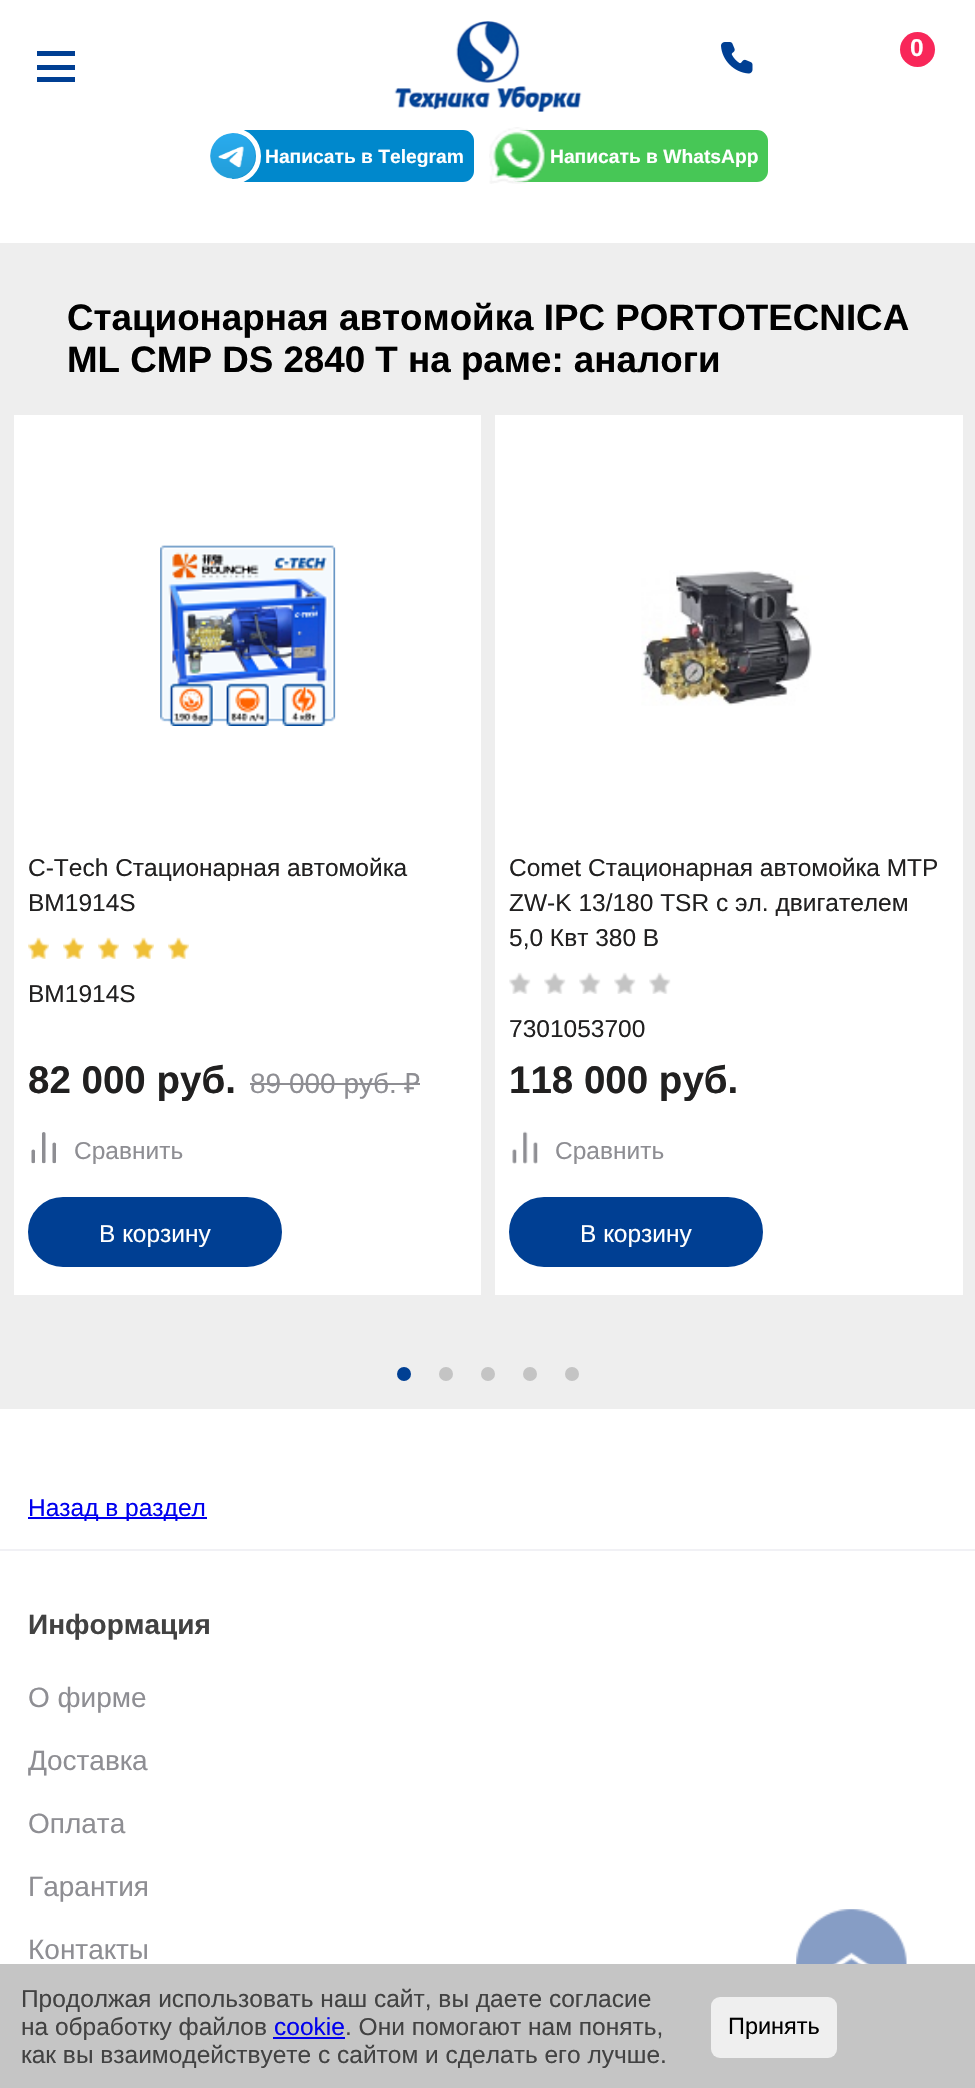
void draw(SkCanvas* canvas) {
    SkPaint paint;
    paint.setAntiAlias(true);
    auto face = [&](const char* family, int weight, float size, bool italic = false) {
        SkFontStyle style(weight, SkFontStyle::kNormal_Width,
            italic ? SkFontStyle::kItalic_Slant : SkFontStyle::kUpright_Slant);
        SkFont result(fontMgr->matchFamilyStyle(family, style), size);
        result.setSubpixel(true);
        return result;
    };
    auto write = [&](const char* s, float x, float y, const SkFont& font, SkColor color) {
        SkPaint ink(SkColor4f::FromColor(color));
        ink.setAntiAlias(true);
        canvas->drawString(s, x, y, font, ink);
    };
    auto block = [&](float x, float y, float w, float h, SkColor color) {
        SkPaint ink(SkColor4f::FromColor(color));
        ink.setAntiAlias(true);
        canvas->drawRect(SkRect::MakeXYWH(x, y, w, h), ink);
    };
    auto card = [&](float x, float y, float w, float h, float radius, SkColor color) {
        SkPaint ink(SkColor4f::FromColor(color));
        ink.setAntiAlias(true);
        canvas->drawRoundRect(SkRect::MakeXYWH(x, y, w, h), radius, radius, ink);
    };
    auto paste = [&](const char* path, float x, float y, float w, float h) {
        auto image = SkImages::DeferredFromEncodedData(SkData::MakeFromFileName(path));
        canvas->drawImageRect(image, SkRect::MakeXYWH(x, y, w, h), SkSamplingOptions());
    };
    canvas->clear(SK_ColorWHITE);
    paste("pic1.png", 394, 21, 188, 91);
    paste("pic2.png", 721, 42, 32, 32);
    paint.setColor(SkColorSetRGB(248, 39, 89));
    canvas->drawCircle(917.5f, 49.5f, 17.5f, paint);
    auto kFont1 = face("Liberation Sans", 700, 24.5f);
    write("0", 910, 56, kFont1, SK_ColorWHITE);
    block(37, 51, 38, 5, SkColorSetRGB(0, 63, 147));
    block(37, 77, 38, 5, SkColorSetRGB(0, 63, 147));
    block(37, 65, 38, 5, SkColorSetRGB(0, 63, 147));
    paint.setColor(SkColorSetRGB(0, 136, 204));
    canvas->drawRoundRect(SkRect::MakeXYWH(230, 131, 243, 50), 10, 10, paint);
    paint.setStyle(SkPaint::kStroke_Style);
    paint.setStrokeWidth(2);
    canvas->drawRoundRect(SkRect::MakeXYWH(230, 131, 243, 50), 10, 10, paint);
    paste("pic3.png", 210, 133, 46, 46);
    paint.setStrokeWidth(5);
    paint.setColor(SK_ColorWHITE);
    canvas->drawCircle(233, 156, 25.5f, paint);
    auto kFont2 = face("Liberation Sans", 700, 19.25f);
    write("Написать в Telegram", 265, 163, kFont2, SK_ColorWHITE);
    paint.setStyle(SkPaint::kFill_Style);
    paint.setColor(SkColorSetRGB(71, 199, 86));
    canvas->drawRoundRect(SkRect::MakeXYWH(509, 131, 258, 50), 10, 10, paint);
    paint.setStyle(SkPaint::kStroke_Style);
    paint.setStrokeWidth(2);
    canvas->drawRoundRect(SkRect::MakeXYWH(509, 131, 258, 50), 10, 10, paint);
    paste("pic4.png", 489, 127, 57, 57);
    write("Написать в WhatsApp", 550, 163, kFont2, SK_ColorWHITE);
    block(0, 243, 975, 1166, SkColorSetRGB(238, 238, 238));
    auto kFont3 = face("Liberation Sans", 700, 36.75f);
    write("Стационарная автомойка IPC PORTOTECNICA", 67, 330, kFont3, SK_ColorBLACK);
    write("ML CMP DS 2840 T на раме: аналоги", 67, 372, kFont3, SK_ColorBLACK);
    block(14, 415, 467, 880, SK_ColorWHITE);
    paste("pic5.png", 160, 545, 176, 181);
    auto kFont4 = face("Liberation Sans", 400, 24.5f);
    write("C-Tech Стационарная автомойка", 28, 876, kFont4, SkColorSetRGB(33, 32, 32));
    write("BM1914S", 28, 911, kFont4, SkColorSetRGB(33, 32, 32));
    paste("pic6.png", 28, 937, 21, 22);
    paste("pic6.png", 63, 937, 21, 22);
    paste("pic6.png", 98, 937, 21, 22);
    paste("pic7.png", 133, 937, 21, 22);
    paste("pic6.png", 168, 937, 21, 22);
    write("BM1914S", 28, 1002, kFont4, SkColorSetRGB(33, 32, 32));
    auto kFont5 = face("Liberation Sans", 700, 38.5f);
    write("82 000 руб.", 28, 1093, kFont5, SkColorSetRGB(33, 32, 32));
    auto kFont6 = face("Liberation Sans", 400, 28);
    write("89 000 руб.", 250, 1093, kFont6, SkColorSetRGB(142, 142, 147));
    auto kFont7 = face("Noto Sans", 400, 28);
    write("₽", 404, 1093, kFont7, SkColorSetRGB(142, 142, 147));
    block(250, 1083, 170, 2, SkColorSetRGB(142, 142, 147));
    paste("pic8.png", 31, 1132, 26, 32);
    write("Сравнить", 74, 1159, kFont4, SkColorSetRGB(142, 142, 147));
    paint.setStyle(SkPaint::kFill_Style);
    paint.setColor(SkColorSetRGB(0, 63, 147));
    canvas->drawRoundRect(SkRect::MakeXYWH(29, 1198, 252, 68), 34, 34, paint);
    paint.setStyle(SkPaint::kStroke_Style);
    canvas->drawRoundRect(SkRect::MakeXYWH(29, 1198, 252, 68), 34, 34, paint);
    write("В корзину", 99, 1242, kFont4, SK_ColorWHITE);
    block(495, 415, 468, 880, SK_ColorWHITE);
    paste("pic9.png", 641, 570, 171, 136);
    write("Comet Стационарная автомойка MTP", 509, 876, kFont4, SkColorSetRGB(33, 32, 32));
    write("ZW-K 13/180 TSR с эл. двигателем", 509, 911, kFont4, SkColorSetRGB(33, 32, 32));
    write("5,0 Квт 380 В", 509, 946, kFont4, SkColorSetRGB(33, 32, 32));
    paste("pic10.png", 509, 972, 22, 22);
    paste("pic11.png", 544, 972, 22, 22);
    paste("pic11.png", 579, 972, 22, 22);
    paste("pic12.png", 614, 972, 22, 22);
    paste("pic11.png", 649, 972, 22, 22);
    write("7301053700", 509, 1037, kFont4, SkColorSetRGB(33, 32, 32));
    write("118 000 руб.", 509, 1093, kFont5, SkColorSetRGB(33, 32, 32));
    paste("pic13.png", 512, 1131, 26, 33);
    write("Сравнить", 555, 1159, kFont4, SkColorSetRGB(142, 142, 147));
    paint.setStyle(SkPaint::kFill_Style);
    canvas->drawRoundRect(SkRect::MakeXYWH(510, 1198, 252, 68), 34, 34, paint);
    paint.setStyle(SkPaint::kStroke_Style);
    canvas->drawRoundRect(SkRect::MakeXYWH(510, 1198, 252, 68), 34, 34, paint);
    write("В корзину", 580, 1242, kFont4, SK_ColorWHITE);
    paint.setStyle(SkPaint::kFill_Style);
    canvas->drawCircle(404, 1374, 7, paint);
    paint.setColor(SkColorSetRGB(196, 196, 196));
    canvas->drawCircle(446, 1374, 7, paint);
    canvas->drawCircle(488, 1374, 7, paint);
    canvas->drawCircle(530, 1374, 7, paint);
    canvas->drawCircle(572, 1374, 7, paint);
    block(28, 1517, 179, 2, SkColorSetRGB(0, 0, 238));
    write("Назад в раздел", 28, 1516, kFont4, SkColorSetRGB(0, 0, 238));
    block(0, 1549, 975, 2, SkColorSetRGB(241, 241, 245));
    auto kFont8 = face("Liberation Sans", 700, 28);
    write("Информация", 28, 1634, kFont8, SkColorSetRGB(66, 66, 66));
    write("О фирме", 28, 1707, kFont6, SkColorSetRGB(142, 142, 147));
    write("Доставка", 28, 1770, kFont6, SkColorSetRGB(142, 142, 147));
    write("Оплата", 28, 1833, kFont6, SkColorSetRGB(142, 142, 147));
    write("Гарантия", 28, 1896, kFont6, SkColorSetRGB(142, 142, 147));
    write("Контакты", 28, 1959, kFont6, SkColorSetRGB(142, 142, 147));
    paste("pic14.png", 796, 1909, 111, 55);
    block(0, 1964, 975, 124, SkColorSetRGB(197, 197, 197));
    write("Продолжая использовать наш сайт, вы даете согласие", 21, 2007, kFont4, SkColorSetRGB(66, 66, 66));
    write("на обработку файлов", 21, 2035, kFont4, SkColorSetRGB(66, 66, 66));
    write("cookie", 274, 2035, kFont4, SkColorSetRGB(0, 0, 238));
    block(273, 2037, 72, 2, SkColorSetRGB(0, 0, 238));
    write(". Они помогают нам понять,", 345, 2035, kFont4, SkColorSetRGB(66, 66, 66));
    write("как вы взаимодействуете с сайтом и сделать его лучше.", 21, 2063, kFont4, SkColorSetRGB(66, 66, 66));
    card(711, 1997, 126, 61, 9, SkColorSetRGB(239, 239, 239));
    auto kFont9 = face("Liberation Sans", 400, 23.5f);
    write("Принять", 728, 2034, kFont9, SK_ColorBLACK);
}
